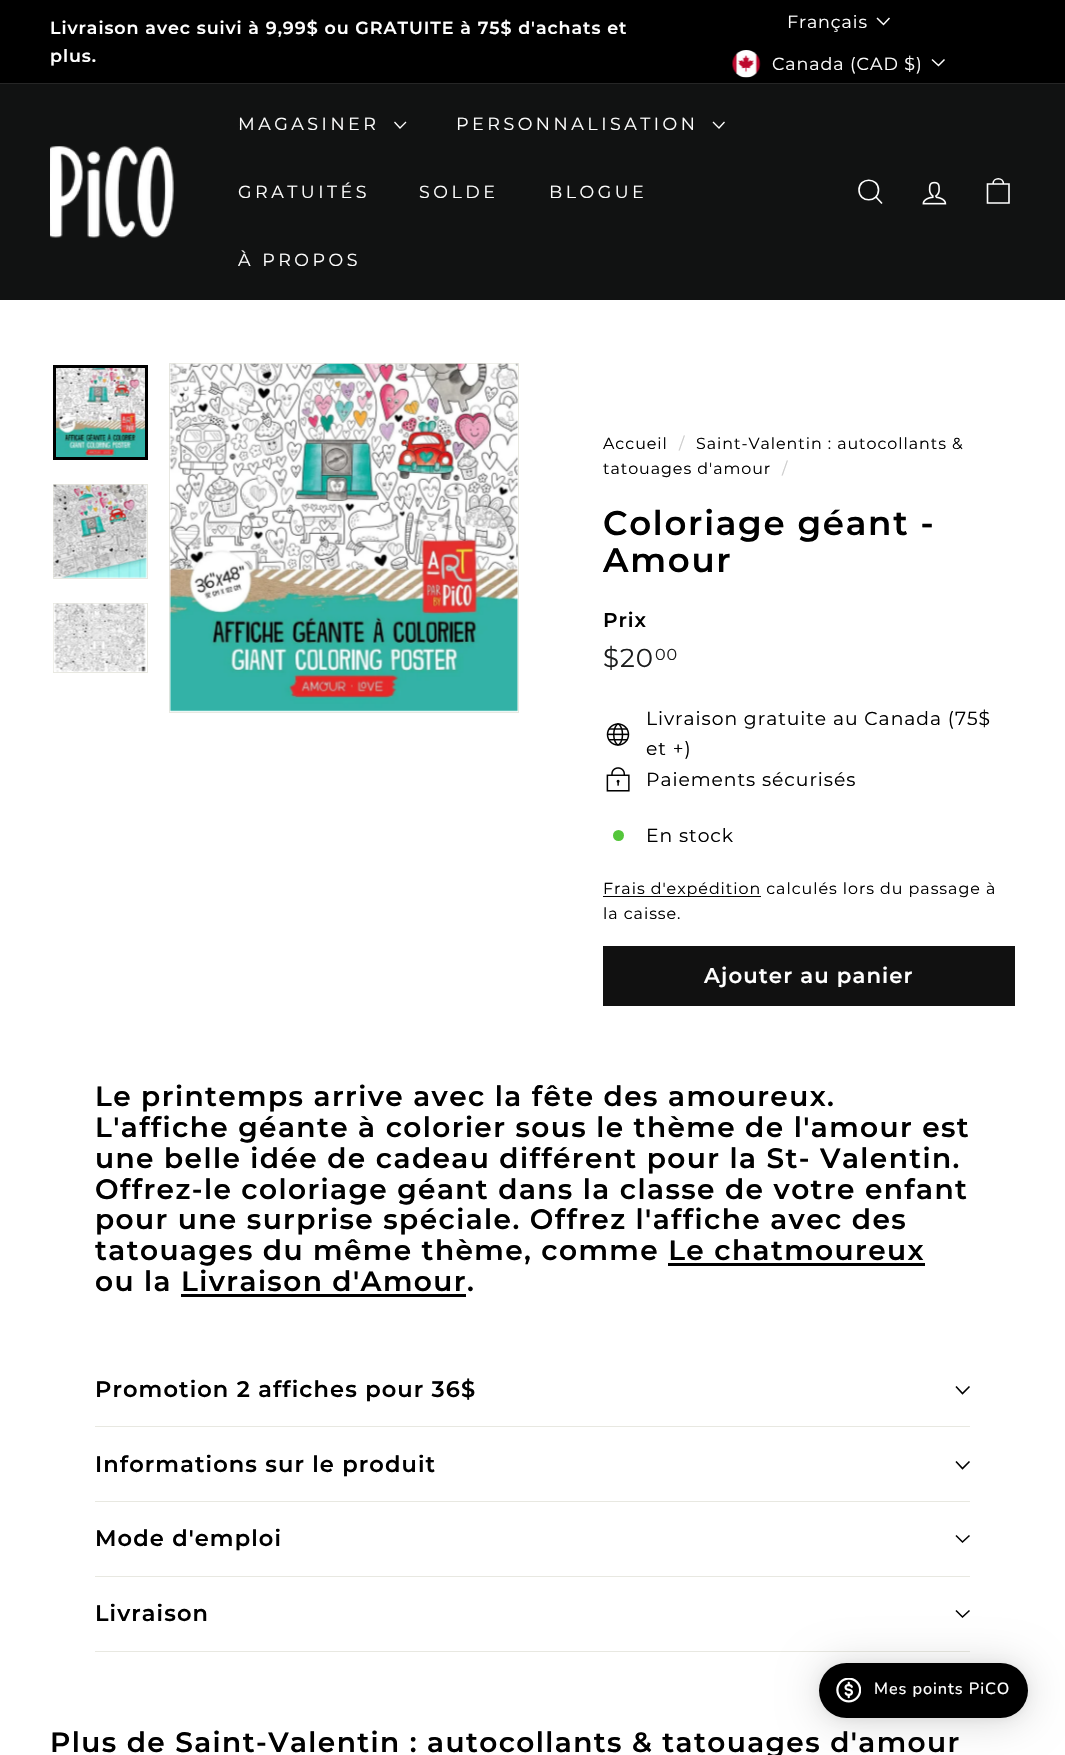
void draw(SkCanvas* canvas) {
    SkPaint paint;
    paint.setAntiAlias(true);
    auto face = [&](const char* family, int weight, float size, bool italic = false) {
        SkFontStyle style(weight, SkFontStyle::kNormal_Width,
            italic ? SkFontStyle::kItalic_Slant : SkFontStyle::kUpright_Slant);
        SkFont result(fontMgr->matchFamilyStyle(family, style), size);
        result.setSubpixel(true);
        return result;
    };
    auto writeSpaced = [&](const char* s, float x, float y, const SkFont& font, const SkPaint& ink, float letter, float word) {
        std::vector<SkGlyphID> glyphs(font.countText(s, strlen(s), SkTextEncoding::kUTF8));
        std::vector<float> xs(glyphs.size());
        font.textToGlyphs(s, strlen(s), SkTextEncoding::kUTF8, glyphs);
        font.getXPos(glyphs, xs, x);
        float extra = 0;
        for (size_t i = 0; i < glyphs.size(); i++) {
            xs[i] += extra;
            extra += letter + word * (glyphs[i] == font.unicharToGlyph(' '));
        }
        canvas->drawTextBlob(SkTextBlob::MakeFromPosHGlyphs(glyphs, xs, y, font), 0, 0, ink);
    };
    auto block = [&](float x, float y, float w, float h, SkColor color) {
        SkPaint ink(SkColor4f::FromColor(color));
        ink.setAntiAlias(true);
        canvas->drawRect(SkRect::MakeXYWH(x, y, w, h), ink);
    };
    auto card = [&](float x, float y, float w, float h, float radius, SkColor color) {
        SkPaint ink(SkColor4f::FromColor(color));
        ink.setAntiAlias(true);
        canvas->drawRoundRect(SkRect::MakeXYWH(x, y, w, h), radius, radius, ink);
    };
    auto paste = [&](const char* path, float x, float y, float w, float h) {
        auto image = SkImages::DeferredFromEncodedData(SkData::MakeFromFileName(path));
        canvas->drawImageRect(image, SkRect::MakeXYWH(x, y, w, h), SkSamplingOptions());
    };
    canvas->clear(SK_ColorWHITE);
    block(0, 0, 1065, 83, SK_ColorBLACK);
    auto kFont1 = face("Montserrat", 600, 17.5f);
    paint.setColor(SK_ColorWHITE);
    writeSpaced("Livraison avec suivi à 9,99$ ou GRATUITE à 75$ d'achats et", 50, 34, kFont1, paint, 0.95f, 0);
    writeSpaced("plus.", 50, 62, kFont1, paint, 0.95f, 0);
    auto kFont2 = face("Montserrat", 400, 17.5f);
    writeSpaced("Français", 787, 28, kFont2, paint, 0.9f, 0);
    paint.setStyle(SkPaint::kStroke_Style);
    paint.setStrokeWidth(1.5f);
    canvas->drawPath(SkPathBuilder().moveTo(877, 18).lineTo(883.5f, 24.5f).lineTo(889.5f, 18).detach(), paint);
    paste("pic1.png", 732, 50, 29, 28);
    paint.setStyle(SkPaint::kFill_Style);
    writeSpaced("Canada (CAD $)", 772, 70, kFont2, paint, 0.9f, 0);
    paint.setStyle(SkPaint::kStroke_Style);
    canvas->drawPath(SkPathBuilder().moveTo(932, 59.5f).lineTo(938.5f, 65.5f).lineTo(944.5f, 59.5f).detach(), paint);
    block(0, 83, 1065, 1, SkColorSetRGB(38, 38, 38));
    block(0, 84, 1065, 216, SkColorSetRGB(17, 18, 18));
    paste("pic2.png", 50, 146, 124, 92);
    paint.setStyle(SkPaint::kFill_Style);
    writeSpaced("MAGASINER", 238, 130, kFont2, paint, 3.5f, 0);
    paint.setStyle(SkPaint::kStroke_Style);
    paint.setStrokeWidth(1.3f);
    canvas->drawPath(SkPathBuilder().moveTo(394.5f, 122).lineTo(400, 128).lineTo(406, 122).detach(), paint);
    paint.setStyle(SkPaint::kFill_Style);
    writeSpaced("PERSONNALISATION", 456, 130, kFont2, paint, 3.5f, 0);
    paint.setStyle(SkPaint::kStroke_Style);
    canvas->drawPath(SkPathBuilder().moveTo(713, 122).lineTo(719, 128).lineTo(724.5f, 122).detach(), paint);
    paint.setStyle(SkPaint::kFill_Style);
    writeSpaced("GRATUITÉS", 238, 198, kFont2, paint, 3.5f, 0);
    writeSpaced("SOLDE", 419, 198, kFont2, paint, 3.5f, 0);
    writeSpaced("BLOGUE", 549, 198, kFont2, paint, 3.5f, 0);
    writeSpaced("À PROPOS", 238, 266, kFont2, paint, 3.5f, 0);
    paint.setStyle(SkPaint::kStroke_Style);
    paint.setStrokeWidth(1.6f);
    canvas->drawPath(SkPathBuilder().moveTo(878.5f, 190).cubicTo(878.5f, 203, 859, 203, 859, 190).cubicTo(859, 177, 878.5f, 177, 878.5f, 190).moveTo(882, 203.5f).lineTo(876, 197).detach(), paint);
    paste("pic3.png", 922, 181, 25, 24);
    canvas->drawPath(SkPathBuilder().moveTo(993, 184).cubicTo(993, 177, 1003.5f, 177, 1003.5f, 184).moveTo(987.5f, 184).lineTo(1009, 184).lineTo(1009, 203).lineTo(987.5f, 203).close().detach(), paint);
    paste("pic4.png", 56, 368, 89, 89);
    paint.setStrokeWidth(3);
    paint.setColor(SK_ColorBLACK);
    canvas->drawRect(SkRect::MakeXYWH(54.5f, 366.5f, 92, 92), paint);
    paint.setStrokeWidth(1);
    paint.setColor(SkColorSetRGB(232, 232, 225));
    canvas->drawRect(SkRect::MakeXYWH(53.5f, 484.5f, 94, 94), paint);
    paste("pic5.png", 53, 484, 94, 94);
    canvas->drawRect(SkRect::MakeXYWH(53.5f, 603.5f, 94, 69), paint);
    paste("pic6.png", 53, 603, 94, 69);
    canvas->drawRect(SkRect::MakeXYWH(169.5f, 363.5f, 349, 349), paint);
    paste("pic7.png", 169, 363, 349, 349);
    auto kFont3 = face("Montserrat", 400, 15.9f);
    paint.setStyle(SkPaint::kFill_Style);
    paint.setColor(SK_ColorBLACK);
    writeSpaced("Accueil", 603, 449, kFont3, paint, 0.95f, 0);
    paint.setColor(SkColorSetRGB(204, 204, 204));
    writeSpaced("/", 679, 449, kFont3, paint, 0.95f, 0);
    paint.setColor(SK_ColorBLACK);
    writeSpaced("Saint-Valentin : autocollants &", 696, 449, kFont3, paint, 0.95f, 0);
    writeSpaced("tatouages d'amour", 603, 474, kFont3, paint, 0.95f, 0);
    paint.setColor(SkColorSetRGB(204, 204, 204));
    writeSpaced("/", 782, 474, kFont3, paint, 0.95f, 0);
    auto kFont4 = face("Montserrat", 600, 34);
    paint.setColor(SK_ColorBLACK);
    writeSpaced("Coloriage géant -", 603, 535, kFont4, paint, 1.75f, 0);
    writeSpaced("Amour", 603, 572, kFont4, paint, 1.75f, 0);
    auto kFont5 = face("Montserrat", 600, 20);
    writeSpaced("Prix", 603, 627, kFont5, paint, 0.95f, 0);
    auto kFont6 = face("Montserrat", 400, 26);
    paint.setColor(SkColorSetRGB(28, 29, 29));
    writeSpaced("$20", 603, 667, kFont6, paint, 0.95f, 0);
    auto kFont7 = face("Montserrat", 400, 16);
    writeSpaced("00", 655, 660, kFont7, paint, 0.95f, 0);
    paste("pic8.png", 606, 723, 24, 23);
    auto kFont8 = face("Montserrat", 400, 18.75f);
    paint.setColor(SK_ColorBLACK);
    writeSpaced("Livraison gratuite au Canada (75$", 646, 725, kFont8, paint, 0.95f, 0);
    writeSpaced("et +)", 646, 755, kFont8, paint, 0.95f, 0);
    paste("pic9.png", 606, 767, 24, 25);
    writeSpaced("Paiements sécurisés", 646, 786, kFont8, paint, 0.95f, 0);
    paint.setColor(SkColorSetRGB(84, 198, 58));
    canvas->drawCircle(618.5f, 835.5f, 5.5f, paint);
    paint.setColor(SK_ColorBLACK);
    writeSpaced("En stock", 646, 842, kFont8, paint, 0.95f, 0);
    block(603, 896, 158, 1, SK_ColorBLACK);
    writeSpaced("Frais d'expédition calculés lors du passage à", 603, 894, kFont3, paint, 0.95f, 0);
    writeSpaced("la caisse.", 603, 919, kFont3, paint, 0.95f, 0);
    block(603, 946, 412, 60, SkColorSetRGB(17, 17, 17));
    auto kFont9 = face("Montserrat", 600, 21.25f);
    paint.setColor(SK_ColorWHITE);
    writeSpaced("Ajouter au panier", 704, 983, kFont9, paint, 1.1f, 0);
    auto kFont10 = face("Montserrat", 600, 28);
    paint.setColor(SK_ColorBLACK);
    writeSpaced("Le printemps arrive avec la fête des amoureux.", 95, 1106, kFont10, paint, 1.4f, 0);
    writeSpaced("L'affiche géante à colorier sous le thème de l'amour est", 95, 1137, kFont10, paint, 1.4f, 0);
    writeSpaced("une belle idée de cadeau différent pour la St- Valentin.", 95, 1168, kFont10, paint, 1.4f, 0);
    writeSpaced("Offrez-le coloriage géant dans la classe de votre enfant", 95, 1199, kFont10, paint, 1.4f, 0);
    writeSpaced("pour une surprise spéciale. Offrez l'affiche avec des", 95, 1229, kFont10, paint, 1.4f, 0);
    writeSpaced("tatouages du même thème, comme Le chatmoureux", 95, 1260, kFont10, paint, 1.4f, 0);
    block(668, 1263, 257, 3, SK_ColorBLACK);
    writeSpaced("ou la Livraison d'Amour.", 95, 1291, kFont10, paint, 1.4f, 0);
    block(181, 1294, 285, 3, SK_ColorBLACK);
    block(95, 1426, 875, 1, SkColorSetRGB(232, 232, 225));
    auto kFont11 = face("Montserrat", 600, 22.5f);
    writeSpaced("Promotion 2 affiches pour 36$", 95, 1397, kFont11, paint, 1.1f, 0);
    paint.setStyle(SkPaint::kStroke_Style);
    paint.setStrokeWidth(1.6f);
    canvas->drawPath(SkPathBuilder().moveTo(956, 1386.5f).lineTo(962.5f, 1393.5f).lineTo(969.5f, 1386.5f).detach(), paint);
    block(95, 1501, 875, 1, SkColorSetRGB(232, 232, 225));
    paint.setStyle(SkPaint::kFill_Style);
    writeSpaced("Informations sur le produit", 95, 1472, kFont11, paint, 1.1f, 0);
    paint.setStyle(SkPaint::kStroke_Style);
    canvas->drawPath(SkPathBuilder().moveTo(956, 1461.5f).lineTo(962.5f, 1468.5f).lineTo(969.5f, 1461.5f).detach(), paint);
    block(95, 1576, 875, 1, SkColorSetRGB(232, 232, 225));
    paint.setStyle(SkPaint::kFill_Style);
    writeSpaced("Mode d'emploi", 95, 1546, kFont11, paint, 1.1f, 0);
    paint.setStyle(SkPaint::kStroke_Style);
    canvas->drawPath(SkPathBuilder().moveTo(956, 1535.5f).lineTo(962.5f, 1542).lineTo(969.5f, 1535.5f).detach(), paint);
    block(95, 1651, 875, 1, SkColorSetRGB(232, 232, 225));
    paint.setStyle(SkPaint::kFill_Style);
    writeSpaced("Livraison", 95, 1621, kFont11, paint, 1.1f, 0);
    paint.setStyle(SkPaint::kStroke_Style);
    canvas->drawPath(SkPathBuilder().moveTo(956, 1610.5f).lineTo(962.5f, 1617).lineTo(969.5f, 1610.5f).detach(), paint);
    paint.setStyle(SkPaint::kFill_Style);
    writeSpaced("Plus de Saint-Valentin : autocollants & tatouages d'amour", 50, 1752, kFont10, paint, 1.4f, 0);
    paint.setColor(SkColorSetARGB(41, 0, 0, 0));
    paint.setMaskFilter(SkMaskFilter::MakeBlur(kNormal_SkBlurStyle, 20));
    canvas->drawRoundRect(SkRect::MakeXYWH(819, 1665, 209, 55), 27.5f, 27.5f, paint);
    paint.setMaskFilter(nullptr);
    paint.setColor(SkColorSetARGB(15, 0, 0, 0));
    paint.setMaskFilter(SkMaskFilter::MakeBlur(kNormal_SkBlurStyle, 4));
    canvas->drawRoundRect(SkRect::MakeXYWH(819, 1664, 209, 55), 27.5f, 27.5f, paint);
    paint.setMaskFilter(nullptr);
    card(819, 1663, 209, 55, 27.5f, SK_ColorBLACK);
    paste("pic10.png", 836, 1678, 25, 25);
    auto kFont12 = face("Nunito", 500, 16.25f);
    paint.setColor(SK_ColorWHITE);
    writeSpaced("Mes points PiCO", 874, 1694, kFont12, paint, 0.95f, 0);
}
